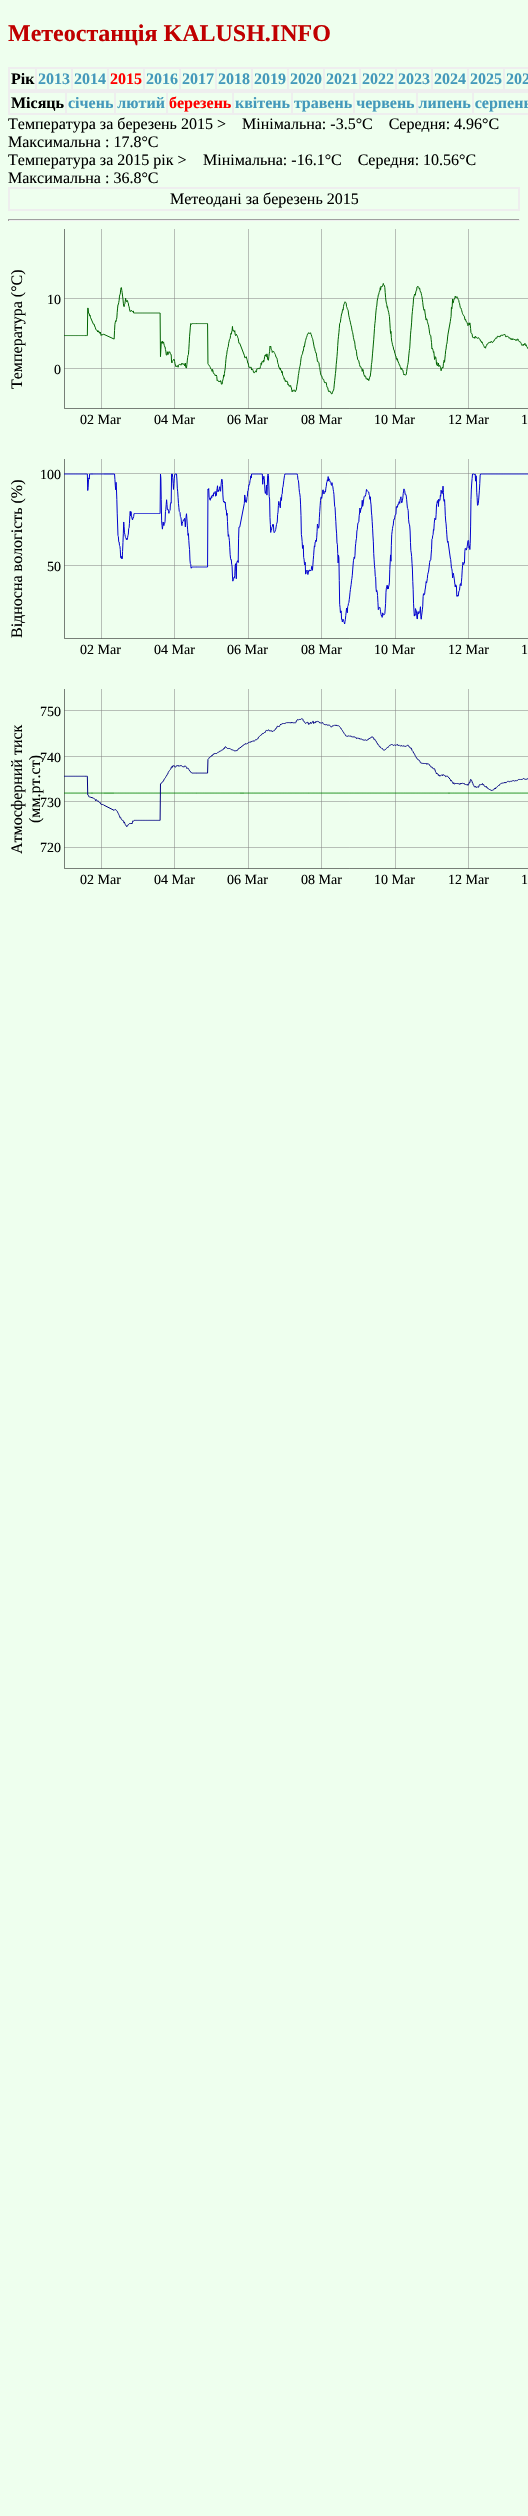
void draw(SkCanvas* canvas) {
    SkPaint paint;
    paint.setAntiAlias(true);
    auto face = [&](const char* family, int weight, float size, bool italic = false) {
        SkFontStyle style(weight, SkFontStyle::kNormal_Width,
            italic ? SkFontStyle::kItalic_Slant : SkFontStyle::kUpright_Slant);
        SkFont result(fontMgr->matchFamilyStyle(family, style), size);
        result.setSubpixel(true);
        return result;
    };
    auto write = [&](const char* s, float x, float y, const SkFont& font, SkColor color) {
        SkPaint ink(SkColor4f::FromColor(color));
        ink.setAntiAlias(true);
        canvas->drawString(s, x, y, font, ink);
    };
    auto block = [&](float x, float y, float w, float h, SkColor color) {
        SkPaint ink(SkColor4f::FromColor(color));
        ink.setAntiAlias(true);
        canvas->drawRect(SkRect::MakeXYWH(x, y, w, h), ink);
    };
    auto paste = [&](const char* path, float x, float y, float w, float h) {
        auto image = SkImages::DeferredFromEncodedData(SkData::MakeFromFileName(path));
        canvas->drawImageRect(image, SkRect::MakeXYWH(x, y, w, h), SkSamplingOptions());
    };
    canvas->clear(SkColorSetRGB(238, 255, 238));
    auto kFont1 = face("Liberation Serif", 700, 24);
    write("Метеостанція KALUSH.INFO", 8, 41, kFont1, SkColorSetRGB(192, 0, 0));
    block(8, 67, 520, 48, SkColorSetRGB(238, 238, 238));
    block(10, 69, 25, 20, SkColorSetRGB(238, 255, 238));
    auto kFont2 = face("Liberation Serif", 700, 16);
    write("Рік", 11, 84, kFont2, SK_ColorBLACK);
    block(73, 69, 34, 20, SkColorSetRGB(238, 255, 238));
    block(181, 69, 34, 20, SkColorSetRGB(238, 255, 238));
    block(217, 69, 34, 20, SkColorSetRGB(238, 255, 238));
    block(253, 69, 34, 20, SkColorSetRGB(238, 255, 238));
    block(289, 69, 34, 20, SkColorSetRGB(238, 255, 238));
    block(325, 69, 34, 20, SkColorSetRGB(238, 255, 238));
    block(361, 69, 34, 20, SkColorSetRGB(238, 255, 238));
    block(397, 69, 34, 20, SkColorSetRGB(238, 255, 238));
    block(433, 69, 34, 20, SkColorSetRGB(238, 255, 238));
    block(469, 69, 34, 20, SkColorSetRGB(238, 255, 238));
    block(505, 69, 23, 20, SkColorSetRGB(238, 255, 238));
    block(37, 69, 34, 20, SkColorSetRGB(238, 255, 238));
    write("2013 2014", 38, 84, kFont2, SkColorSetRGB(68, 153, 187));
    block(109, 69, 34, 20, SkColorSetRGB(238, 255, 238));
    write("2015", 110, 84, kFont2, SkColorSetRGB(255, 0, 0));
    block(145, 69, 34, 20, SkColorSetRGB(238, 255, 238));
    write("2016 2017 2018 2019 2020 2021 2022 2023 2024 2025 202", 146, 84, kFont2, SkColorSetRGB(68, 153, 187));
    block(10, 93, 55, 20, SkColorSetRGB(238, 255, 238));
    write("Місяць", 11, 108, kFont2, SK_ColorBLACK);
    block(116, 93, 50, 20, SkColorSetRGB(238, 255, 238));
    block(293, 93, 60, 20, SkColorSetRGB(238, 255, 238));
    block(355, 93, 61, 20, SkColorSetRGB(238, 255, 238));
    block(418, 93, 54, 20, SkColorSetRGB(238, 255, 238));
    block(474, 93, 54, 20, SkColorSetRGB(238, 255, 238));
    block(67, 93, 47, 20, SkColorSetRGB(238, 255, 238));
    write("січень лютий", 68, 108, kFont2, SkColorSetRGB(68, 153, 187));
    block(168, 93, 64, 20, SkColorSetRGB(238, 255, 238));
    write("березень", 169, 108, kFont2, SkColorSetRGB(255, 0, 0));
    block(234, 93, 57, 20, SkColorSetRGB(238, 255, 238));
    write("квітень травень червень липень серпень", 235, 108, kFont2, SkColorSetRGB(68, 153, 187));
    auto kFont3 = face("Liberation Serif", 400, 16);
    write("Температура за березень 2015 >", 8, 129, kFont3, SK_ColorBLACK);
    write("Мінімальна: -3.5°C    Середня: 4.96°C", 242, 129, kFont3, SK_ColorBLACK);
    write("Максимальна : 17.8°C", 8, 147, kFont3, SK_ColorBLACK);
    write("Температура за 2015 рік >", 8, 165, kFont3, SK_ColorBLACK);
    write("Мінімальна: -16.1°C    Середня: 10.56°C", 203, 165, kFont3, SK_ColorBLACK);
    write("Максимальна : 36.8°C", 8, 183, kFont3, SK_ColorBLACK);
    block(8, 187, 512, 24, SkColorSetRGB(238, 238, 238));
    block(10, 189, 508, 20, SkColorSetRGB(238, 255, 238));
    write("Метеодані за березень 2015", 170, 204, kFont3, SK_ColorBLACK);
    block(8, 219, 512, 1, SkColorSetRGB(159, 159, 159));
    block(519, 219, 1, 2, SkColorSetRGB(238, 238, 238));
    block(8, 220, 512, 1, SkColorSetRGB(238, 238, 238));
    block(8, 219, 1, 2, SkColorSetRGB(159, 159, 159));
    canvas->save();
    canvas->rotate(-90, 22, 389);
    write("Температура (°C)", 22, 389, kFont3, SK_ColorBLACK);
    canvas->restore();
    auto kFont4 = face("Liberation Serif", 400, 14);
    write("10", 47, 304, kFont4, SK_ColorBLACK);
    paste("pic1.png", 64, 229, 464, 180);
    write("0", 54, 374, kFont4, SK_ColorBLACK);
    write("02 Mar", 80, 424, kFont4, SK_ColorBLACK);
    write("04 Mar", 154, 424, kFont4, SK_ColorBLACK);
    write("06 Mar", 227, 424, kFont4, SK_ColorBLACK);
    write("08 Mar", 301, 424, kFont4, SK_ColorBLACK);
    write("10 Mar", 374, 424, kFont4, SK_ColorBLACK);
    write("12 Mar", 448, 424, kFont4, SK_ColorBLACK);
    write("1", 521, 424, kFont4, SK_ColorBLACK);
    write("100", 40, 479, kFont4, SK_ColorBLACK);
    paste("pic2.png", 64, 459, 464, 180);
    canvas->save();
    canvas->rotate(-90, 22, 638);
    write("Відносна вологість (%)", 22, 638, kFont3, SK_ColorBLACK);
    canvas->restore();
    write("50", 47, 571, kFont4, SK_ColorBLACK);
    write("02 Mar", 80, 654, kFont4, SK_ColorBLACK);
    write("04 Mar", 154, 654, kFont4, SK_ColorBLACK);
    write("06 Mar", 227, 654, kFont4, SK_ColorBLACK);
    write("08 Mar", 301, 654, kFont4, SK_ColorBLACK);
    write("10 Mar", 374, 654, kFont4, SK_ColorBLACK);
    write("12 Mar", 448, 654, kFont4, SK_ColorBLACK);
    write("1", 521, 654, kFont4, SK_ColorBLACK);
    write("750", 40, 716, kFont4, SK_ColorBLACK);
    paste("pic3.png", 64, 689, 464, 180);
    canvas->save();
    canvas->rotate(-90, 22, 854);
    write("Атмосферний тиск", 22, 854, kFont3, SK_ColorBLACK);
    canvas->restore();
    canvas->save();
    canvas->rotate(-90, 40, 823);
    write("(мм.рт.ст)", 40, 823, kFont3, SK_ColorBLACK);
    canvas->restore();
    write("740", 40, 762, kFont4, SK_ColorBLACK);
    write("730", 40, 807, kFont4, SK_ColorBLACK);
    write("720", 40, 852, kFont4, SK_ColorBLACK);
    write("02 Mar", 80, 884, kFont4, SK_ColorBLACK);
    write("04 Mar", 154, 884, kFont4, SK_ColorBLACK);
    write("06 Mar", 227, 884, kFont4, SK_ColorBLACK);
    write("08 Mar", 301, 884, kFont4, SK_ColorBLACK);
    write("10 Mar", 374, 884, kFont4, SK_ColorBLACK);
    write("12 Mar", 448, 884, kFont4, SK_ColorBLACK);
    write("1", 521, 884, kFont4, SK_ColorBLACK);
}
